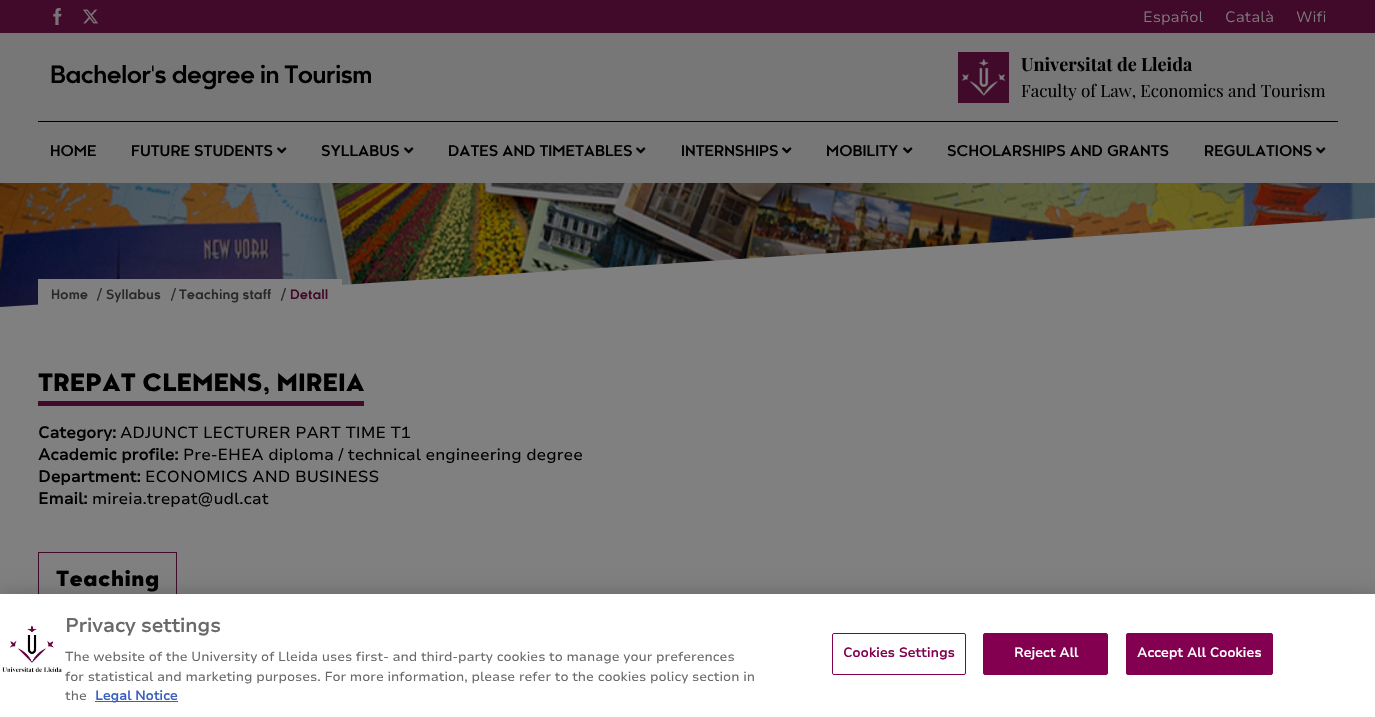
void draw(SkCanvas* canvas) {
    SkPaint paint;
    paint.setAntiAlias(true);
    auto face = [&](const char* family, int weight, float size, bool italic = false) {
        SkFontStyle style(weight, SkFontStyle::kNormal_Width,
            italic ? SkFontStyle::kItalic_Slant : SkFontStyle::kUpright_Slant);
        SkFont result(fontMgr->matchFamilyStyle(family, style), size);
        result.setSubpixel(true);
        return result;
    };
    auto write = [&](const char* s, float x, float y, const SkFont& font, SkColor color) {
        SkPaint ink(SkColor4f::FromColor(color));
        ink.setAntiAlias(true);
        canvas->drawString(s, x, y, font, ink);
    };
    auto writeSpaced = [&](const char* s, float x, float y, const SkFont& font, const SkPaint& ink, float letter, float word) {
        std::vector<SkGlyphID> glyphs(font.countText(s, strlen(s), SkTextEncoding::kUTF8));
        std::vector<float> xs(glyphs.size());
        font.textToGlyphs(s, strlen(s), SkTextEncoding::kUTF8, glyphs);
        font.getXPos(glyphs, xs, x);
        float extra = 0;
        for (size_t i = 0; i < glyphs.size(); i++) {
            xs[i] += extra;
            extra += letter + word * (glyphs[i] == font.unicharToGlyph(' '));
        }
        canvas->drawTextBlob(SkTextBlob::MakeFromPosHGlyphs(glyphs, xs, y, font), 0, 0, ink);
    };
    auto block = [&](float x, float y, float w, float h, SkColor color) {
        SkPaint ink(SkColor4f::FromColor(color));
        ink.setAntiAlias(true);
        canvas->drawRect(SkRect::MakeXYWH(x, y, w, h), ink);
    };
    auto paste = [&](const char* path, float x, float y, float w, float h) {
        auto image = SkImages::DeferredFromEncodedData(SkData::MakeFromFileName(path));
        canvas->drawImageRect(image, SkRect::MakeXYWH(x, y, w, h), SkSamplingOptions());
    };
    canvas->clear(SkColorSetRGB(128, 128, 128));
    block(0, 0, 1375, 33, SkColorSetRGB(66, 10, 42));
    paste("pic1.png", 53, 8, 9, 17);
    paste("pic2.png", 83, 9, 15, 15);
    auto kFont1 = face("Nunito Sans", 300, 15);
    write("Español", 1143, 22, kFont1, SkColorSetRGB(128, 128, 128));
    write("Català", 1225, 22, kFont1, SkColorSetRGB(128, 128, 128));
    write("Wifi", 1296, 22, kFont1, SkColorSetRGB(128, 128, 128));
    block(0, 33, 1375, 150, SkColorSetRGB(119, 119, 119));
    auto kFont2 = face("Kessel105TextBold", 700, 24);
    paint.setColor(SK_ColorBLACK);
    writeSpaced("Bachelor's degree in Tourism", 50, 83, kFont2, paint, -0.95f, 0);
    block(958, 52, 51, 51, SkColorSetRGB(66, 10, 42));
    paste("pic3.png", 962, 59, 44, 37);
    auto kFont3 = face("Playfair Display", 700, 18);
    write("Universitat de Lleida", 1021, 71, kFont3, SK_ColorBLACK);
    auto kFont4 = face("Playfair Display", 400, 17);
    write("Faculty of Law, Economics and Tourism", 1021, 97, kFont4, SK_ColorBLACK);
    block(38, 121, 1300, 1, SK_ColorBLACK);
    auto kFont5 = face("Kessel105TextBold", 700, 15);
    write("HOME", 50, 156, kFont5, SK_ColorBLACK);
    write("FUTURE STUDENTS", 131, 156, kFont5, SK_ColorBLACK);
    paste("pic4.png", 277, 147, 10, 7);
    write("SYLLABUS", 321, 156, kFont5, SK_ColorBLACK);
    paste("pic4.png", 404, 147, 10, 7);
    write("DATES AND TIMETABLES", 448, 156, kFont5, SK_ColorBLACK);
    paste("pic4.png", 636, 147, 10, 7);
    write("INTERNSHIPS", 681, 156, kFont5, SK_ColorBLACK);
    paste("pic4.png", 782, 147, 10, 7);
    write("MOBILITY", 826, 156, kFont5, SK_ColorBLACK);
    paste("pic4.png", 903, 147, 10, 7);
    write("SCHOLARSHIPS AND GRANTS", 947, 156, kFont5, SK_ColorBLACK);
    write("REGULATIONS", 1204, 156, kFont5, SK_ColorBLACK);
    paste("pic4.png", 1316, 147, 10, 7);
    paint.setColor(SkColorSetRGB(119, 119, 119));
    canvas->drawPath(SkPathBuilder().moveTo(0, 183).lineTo(0, 307).lineTo(1375, 218).lineTo(1375, 183).close().detach(), paint);
    paste("pic5.png", 0, 183, 1375, 124);
    block(38, 279, 304, 26, SkColorSetRGB(128, 128, 128));
    auto kFont6 = face("Kessel105TextBold", 700, 13);
    write("Home", 51, 299, kFont6, SkColorSetRGB(41, 41, 41));
    auto kFont7 = face("Nunito Sans", 400, 16);
    write("/", 97, 300, kFont7, SkColorSetRGB(41, 41, 41));
    write("Syllabus", 106, 299, kFont6, SkColorSetRGB(41, 41, 41));
    write("/", 171, 300, kFont7, SkColorSetRGB(41, 41, 41));
    write("Teaching staff", 179, 299, kFont6, SkColorSetRGB(41, 41, 41));
    write("/", 281, 300, kFont7, SkColorSetRGB(41, 41, 41));
    write("Detall", 290, 299, kFont6, SkColorSetRGB(66, 10, 42));
    block(38, 401, 326, 5, SkColorSetRGB(66, 10, 42));
    auto kFont8 = face("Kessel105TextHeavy", 900, 24);
    write("TREPAT CLEMENS, MIREIA", 38, 391, kFont8, SK_ColorBLACK);
    auto kFont9 = face("Nunito Sans", 700, 16);
    write("Category:", 38, 438, kFont9, SK_ColorBLACK);
    write("ADJUNCT LECTURER PART TIME T1", 120, 438, kFont7, SK_ColorBLACK);
    write("Academic profile:", 38, 460, kFont9, SK_ColorBLACK);
    write("Pre-EHEA diploma / technical engineering degree", 183, 460, kFont7, SK_ColorBLACK);
    write("Department:", 38, 482, kFont9, SK_ColorBLACK);
    write("ECONOMICS AND BUSINESS", 145, 482, kFont7, SK_ColorBLACK);
    write("Email:", 38, 504, kFont9, SK_ColorBLACK);
    write("mireia.trepat@udl.cat", 92, 504, kFont7, SK_ColorBLACK);
    paint.setStyle(SkPaint::kStroke_Style);
    paint.setStrokeWidth(1);
    paint.setColor(SkColorSetRGB(66, 10, 42));
    canvas->drawRect(SkRect::MakeXYWH(38.5f, 552.5f, 138, 56), paint);
    auto kFont10 = face("Kessel105TextHeavy", 900, 21);
    write("Teaching", 56, 586, kFont10, SK_ColorBLACK);
    paint.setStyle(SkPaint::kFill_Style);
    paint.setColor(SkColorSetARGB(51, 0, 0, 0));
    paint.setMaskFilter(SkMaskFilter::MakeBlur(kNormal_SkBlurStyle, 9));
    canvas->drawRect(SkRect::MakeXYWH(0, 594, 1375, 123), paint);
    paint.setMaskFilter(nullptr);
    block(0, 594, 1375, 123, SK_ColorWHITE);
    paste("pic6.png", 2, 625, 60, 47);
    auto kFont11 = face("Nunito Sans", 700, 19.25f);
    write("Privacy settings", 65, 632, kFont11, SkColorSetRGB(105, 105, 105));
    auto kFont12 = face("Nunito Sans", 400, 13);
    write("The website of the University of Lleida uses first- and third-party cookies to manage your preferences", 65, 661, kFont12, SkColorSetRGB(105, 105, 105));
    write("for statistical and marketing purposes. For more information, please refer to the cookies policy section in", 65, 681, kFont12, SkColorSetRGB(105, 105, 105));
    write("the", 65, 700, kFont12, SkColorSetRGB(105, 105, 105));
    block(95, 701, 83, 1, SkColorSetRGB(56, 96, 190));
    auto kFont13 = face("Nunito Sans", 700, 13);
    write("Legal Notice", 95, 700, kFont13, SkColorSetRGB(56, 96, 190));
    paint.setStyle(SkPaint::kStroke_Style);
    paint.setColor(SkColorSetRGB(131, 0, 81));
    canvas->drawRoundRect(SkRect::MakeXYWH(832.5f, 633.5f, 133, 41), 1.5f, 1.5f, paint);
    paint.setStyle(SkPaint::kFill_Style);
    writeSpaced("Cookies Settings", 843, 657, kFont13, paint, 0.1f, 0);
    canvas->drawRoundRect(SkRect::MakeXYWH(983.5f, 633.5f, 124, 41), 1.5f, 1.5f, paint);
    paint.setStyle(SkPaint::kStroke_Style);
    canvas->drawRoundRect(SkRect::MakeXYWH(983.5f, 633.5f, 124, 41), 1.5f, 1.5f, paint);
    paint.setStyle(SkPaint::kFill_Style);
    paint.setColor(SK_ColorWHITE);
    writeSpaced("Reject All", 1014, 657, kFont13, paint, 0.1f, 0);
    paint.setColor(SkColorSetRGB(131, 0, 81));
    canvas->drawRoundRect(SkRect::MakeXYWH(1126.5f, 633.5f, 146, 41), 1.5f, 1.5f, paint);
    paint.setStyle(SkPaint::kStroke_Style);
    canvas->drawRoundRect(SkRect::MakeXYWH(1126.5f, 633.5f, 146, 41), 1.5f, 1.5f, paint);
    paint.setStyle(SkPaint::kFill_Style);
    paint.setColor(SK_ColorWHITE);
    writeSpaced("Accept All Cookies", 1137, 657, kFont13, paint, 0.1f, 0);
}
